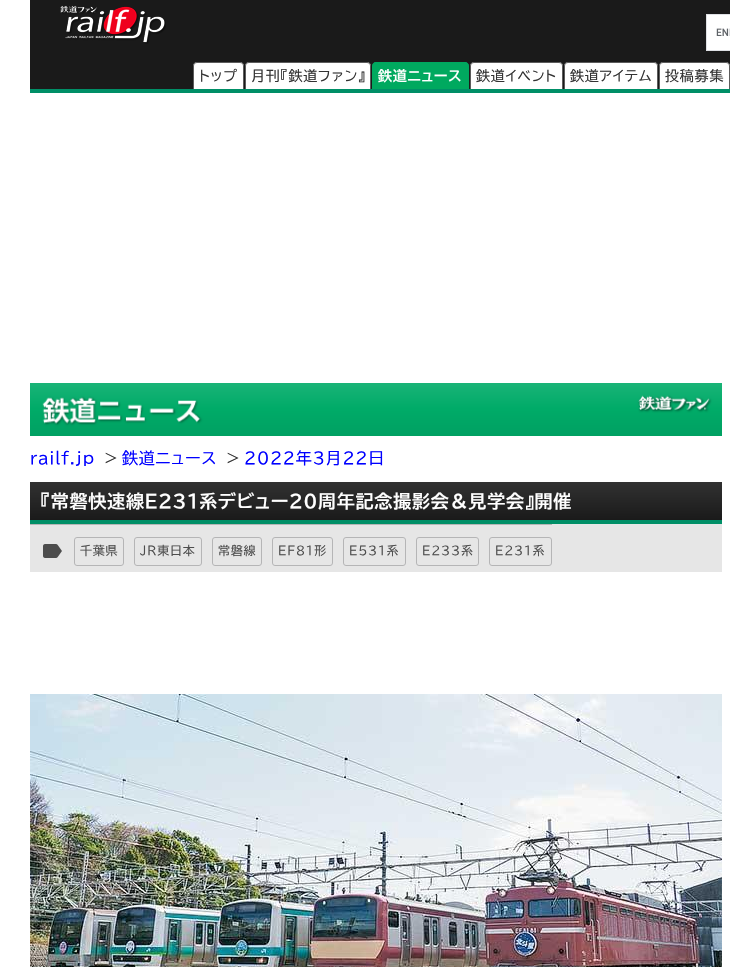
void draw(SkCanvas* canvas) {
    SkPaint paint;
    paint.setAntiAlias(true);
    auto face = [&](const char* family, int weight, float size, bool italic = false) {
        SkFontStyle style(weight, SkFontStyle::kNormal_Width,
            italic ? SkFontStyle::kItalic_Slant : SkFontStyle::kUpright_Slant);
        SkFont result(fontMgr->matchFamilyStyle(family, style), size);
        result.setSubpixel(true);
        return result;
    };
    auto writeSpaced = [&](const char* s, float x, float y, const SkFont& font, const SkPaint& ink, float letter, float word) {
        std::vector<SkGlyphID> glyphs(font.countText(s, strlen(s), SkTextEncoding::kUTF8));
        std::vector<float> xs(glyphs.size());
        font.textToGlyphs(s, strlen(s), SkTextEncoding::kUTF8, glyphs);
        font.getXPos(glyphs, xs, x);
        float extra = 0;
        for (size_t i = 0; i < glyphs.size(); i++) {
            xs[i] += extra;
            extra += letter + word * (glyphs[i] == font.unicharToGlyph(' '));
        }
        canvas->drawTextBlob(SkTextBlob::MakeFromPosHGlyphs(glyphs, xs, y, font), 0, 0, ink);
    };
    auto block = [&](float x, float y, float w, float h, SkColor color) {
        SkPaint ink(SkColor4f::FromColor(color));
        ink.setAntiAlias(true);
        canvas->drawRect(SkRect::MakeXYWH(x, y, w, h), ink);
    };
    auto paste = [&](const char* path, float x, float y, float w, float h) {
        auto image = SkImages::DeferredFromEncodedData(SkData::MakeFromFileName(path));
        canvas->drawImageRect(image, SkRect::MakeXYWH(x, y, w, h), SkSamplingOptions());
    };
    canvas->clear(SK_ColorWHITE);
    block(30, 0, 700, 89, SkColorSetRGB(26, 26, 26));
    block(30, 89, 700, 4, SkColorSetRGB(0, 143, 103));
    paste("pic1.png", 60, 5, 106, 39);
    paint.setColor(SK_ColorWHITE);
    canvas->drawRect(SkRect::MakeXYWH(706.5f, 14.5f, 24, 36), paint);
    paint.setStyle(SkPaint::kStroke_Style);
    paint.setStrokeWidth(1);
    paint.setColor(SkColorSetRGB(223, 225, 229));
    canvas->drawRect(SkRect::MakeXYWH(706.5f, 14.5f, 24, 36), paint);
    paste("pic2.png", 716, 28, 14, 8);
    paint.setStyle(SkPaint::kFill_Style);
    paint.setColor(SK_ColorWHITE);
    canvas->drawPath(SkPathBuilder().moveTo(197, 62).lineTo(240, 62).cubicTo(242, 62, 244, 64, 244, 66).lineTo(244, 89).lineTo(193, 89).lineTo(193, 66).cubicTo(193, 64, 195, 62, 197, 62).close().detach(), paint);
    paint.setColor(SkColorSetARGB(204, 51, 51, 51));
    canvas->drawPath(SkPathBuilder(SkPathFillType::kEvenOdd).moveTo(197, 62).lineTo(240, 62).cubicTo(242, 62, 244, 64, 244, 66).lineTo(244, 89).lineTo(193, 89).lineTo(193, 66).cubicTo(193, 64, 195, 62, 197, 62).close().moveTo(197, 63).lineTo(240, 63).cubicTo(242, 63, 243, 64, 243, 66).lineTo(243, 89).lineTo(194, 89).lineTo(194, 66).cubicTo(194, 64, 195, 63, 197, 63).close().detach(), paint);
    auto kFont1 = face("BIZ UDPGothic", 400, 14);
    paint.setColor(SkColorSetRGB(51, 51, 51));
    writeSpaced("トップ", 199, 81, kFont1, paint, 0.8f, 0);
    paint.setColor(SK_ColorWHITE);
    canvas->drawPath(SkPathBuilder().moveTo(249, 62).lineTo(367, 62).cubicTo(369, 62, 371, 64, 371, 66).lineTo(371, 89).lineTo(245, 89).lineTo(245, 66).cubicTo(245, 64, 247, 62, 249, 62).close().detach(), paint);
    paint.setColor(SkColorSetARGB(204, 51, 51, 51));
    canvas->drawPath(SkPathBuilder(SkPathFillType::kEvenOdd).moveTo(249, 62).lineTo(367, 62).cubicTo(369, 62, 371, 64, 371, 66).lineTo(371, 89).lineTo(245, 89).lineTo(245, 66).cubicTo(245, 64, 247, 62, 249, 62).close().moveTo(249, 63).lineTo(367, 63).cubicTo(369, 63, 370, 64, 370, 66).lineTo(370, 89).lineTo(246, 89).lineTo(246, 66).cubicTo(246, 64, 247, 63, 249, 63).close().detach(), paint);
    paint.setColor(SkColorSetRGB(51, 51, 51));
    writeSpaced("月刊『鉄道ファン』", 251, 81, kFont1, paint, 0.8f, 0);
    paint.setColor(SkColorSetRGB(0, 169, 95));
    canvas->drawPath(SkPathBuilder().moveTo(376, 62).lineTo(465, 62).cubicTo(467, 62, 469, 64, 469, 66).lineTo(469, 89).lineTo(372, 89).lineTo(372, 66).cubicTo(372, 64, 374, 62, 376, 62).close().detach(), paint);
    paint.setColor(SkColorSetARGB(204, 0, 168, 95));
    canvas->drawPath(SkPathBuilder(SkPathFillType::kEvenOdd).moveTo(376, 62).lineTo(465, 62).cubicTo(467, 62, 469, 64, 469, 66).lineTo(469, 89).lineTo(372, 89).lineTo(372, 66).cubicTo(372, 64, 374, 62, 376, 62).close().moveTo(376, 63).lineTo(465, 63).cubicTo(467, 63, 468, 64, 468, 66).lineTo(468, 89).lineTo(373, 89).lineTo(373, 66).cubicTo(373, 64, 374, 63, 376, 63).close().detach(), paint);
    auto kFont2 = face("BIZ UDPGothic", 700, 14);
    paint.setColor(SK_ColorWHITE);
    writeSpaced("鉄道ニュース", 378, 81, kFont2, paint, 0.8f, 0);
    canvas->drawPath(SkPathBuilder().moveTo(474, 62).lineTo(559, 62).cubicTo(561, 62, 563, 64, 563, 66).lineTo(563, 89).lineTo(470, 89).lineTo(470, 66).cubicTo(470, 64, 472, 62, 474, 62).close().detach(), paint);
    paint.setColor(SkColorSetARGB(204, 51, 51, 51));
    canvas->drawPath(SkPathBuilder(SkPathFillType::kEvenOdd).moveTo(474, 62).lineTo(559, 62).cubicTo(561, 62, 563, 64, 563, 66).lineTo(563, 89).lineTo(470, 89).lineTo(470, 66).cubicTo(470, 64, 472, 62, 474, 62).close().moveTo(474, 63).lineTo(559, 63).cubicTo(561, 63, 562, 64, 562, 66).lineTo(562, 89).lineTo(471, 89).lineTo(471, 66).cubicTo(471, 64, 472, 63, 474, 63).close().detach(), paint);
    paint.setColor(SkColorSetRGB(51, 51, 51));
    writeSpaced("鉄道イベント", 476, 81, kFont1, paint, 0.8f, 0);
    paint.setColor(SK_ColorWHITE);
    canvas->drawPath(SkPathBuilder().moveTo(568, 62).lineTo(654, 62).cubicTo(656, 62, 658, 64, 658, 66).lineTo(658, 89).lineTo(564, 89).lineTo(564, 66).cubicTo(564, 64, 566, 62, 568, 62).close().detach(), paint);
    paint.setColor(SkColorSetARGB(204, 51, 51, 51));
    canvas->drawPath(SkPathBuilder(SkPathFillType::kEvenOdd).moveTo(568, 62).lineTo(654, 62).cubicTo(656, 62, 658, 64, 658, 66).lineTo(658, 89).lineTo(564, 89).lineTo(564, 66).cubicTo(564, 64, 566, 62, 568, 62).close().moveTo(568, 63).lineTo(654, 63).cubicTo(656, 63, 657, 64, 657, 66).lineTo(657, 89).lineTo(565, 89).lineTo(565, 66).cubicTo(565, 64, 566, 63, 568, 63).close().detach(), paint);
    paint.setColor(SkColorSetRGB(51, 51, 51));
    writeSpaced("鉄道アイテム", 570, 81, kFont1, paint, 0.8f, 0);
    paint.setColor(SK_ColorWHITE);
    canvas->drawPath(SkPathBuilder().moveTo(663, 62).lineTo(726, 62).cubicTo(728, 62, 730, 64, 730, 66).lineTo(730, 89).lineTo(659, 89).lineTo(659, 66).cubicTo(659, 64, 661, 62, 663, 62).close().detach(), paint);
    paint.setColor(SkColorSetARGB(204, 51, 51, 51));
    canvas->drawPath(SkPathBuilder(SkPathFillType::kEvenOdd).moveTo(663, 62).lineTo(726, 62).cubicTo(728, 62, 730, 64, 730, 66).lineTo(730, 89).lineTo(659, 89).lineTo(659, 66).cubicTo(659, 64, 661, 62, 663, 62).close().moveTo(663, 63).lineTo(726, 63).cubicTo(728, 63, 729, 64, 729, 66).lineTo(729, 89).lineTo(660, 89).lineTo(660, 66).cubicTo(660, 64, 661, 63, 663, 63).close().detach(), paint);
    paint.setColor(SkColorSetRGB(51, 51, 51));
    writeSpaced("投稿募集", 665, 81, kFont1, paint, 0.8f, 0);
    paste("pic3.png", 30, 383, 692, 53);
    auto kFont3 = face("BIZ UDPGothic", 400, 16);
    paint.setColor(SkColorSetRGB(0, 0, 255));
    writeSpaced("railf.jp", 30, 464, kFont3, paint, 0.8f, 0);
    paint.setColor(SkColorSetRGB(51, 51, 51));
    writeSpaced("＞", 103, 464, kFont3, paint, 0.8f, 0);
    paint.setColor(SkColorSetRGB(0, 0, 255));
    writeSpaced("鉄道ニュース", 122, 464, kFont3, paint, 0.8f, 0);
    paint.setColor(SkColorSetRGB(51, 51, 51));
    writeSpaced("＞", 225, 464, kFont3, paint, 0.8f, 0);
    paint.setColor(SkColorSetRGB(0, 0, 255));
    writeSpaced("2022年3月22日", 244, 464, kFont3, paint, 0.8f, 0);
    {
        const SkColor colors[] = {SkColorSetRGB(49, 49, 49), SkColorSetRGB(38, 38, 38), SkColorSetRGB(26, 26, 26)};
        const float stops[] = {0, 0.5f, 1};
        const SkPoint ends[] = {{376, 482}, {376, 520}};
        paint.setShader(SkGradientShader::MakeLinear(ends, colors, stops, 3, SkTileMode::kClamp));
        paint.setAlpha(255);
    }
    canvas->drawRect(SkRect::MakeXYWH(30, 482, 692, 38), paint);
    block(30, 520, 692, 4, SkColorSetRGB(0, 143, 103));
    auto kFont4 = face("BIZ UDPGothic", 700, 18);
    paint.setShader(nullptr);
    paint.setColor(SK_ColorWHITE);
    writeSpaced("『常磐快速線E231系デビュー20周年記念撮影会＆見学会』開催", 41, 508, kFont4, paint, 0.8f, 0);
    block(30, 524, 692, 48, SkColorSetRGB(230, 230, 230));
    block(30, 524, 522, 1, SkColorSetRGB(181, 181, 182));
    paste("pic4.png", 43, 544, 19, 14);
    paint.setStyle(SkPaint::kStroke_Style);
    paint.setColor(SkColorSetRGB(181, 181, 182));
    canvas->drawRoundRect(SkRect::MakeXYWH(74.5f, 537.5f, 49, 28), 2.5f, 2.5f, paint);
    auto kFont5 = face("BIZ UDPGothic", 400, 12);
    paint.setStyle(SkPaint::kFill_Style);
    paint.setColor(SkColorSetRGB(77, 77, 77));
    writeSpaced("千葉県", 80, 555, kFont5, paint, 0.8f, 0);
    paint.setStyle(SkPaint::kStroke_Style);
    paint.setColor(SkColorSetRGB(181, 181, 182));
    canvas->drawRoundRect(SkRect::MakeXYWH(134.5f, 537.5f, 67, 28), 2.5f, 2.5f, paint);
    paint.setStyle(SkPaint::kFill_Style);
    paint.setColor(SkColorSetRGB(77, 77, 77));
    writeSpaced("JR東日本", 140, 555, kFont5, paint, 0.8f, 0);
    paint.setStyle(SkPaint::kStroke_Style);
    paint.setColor(SkColorSetRGB(181, 181, 182));
    canvas->drawRoundRect(SkRect::MakeXYWH(212.5f, 537.5f, 49, 28), 2.5f, 2.5f, paint);
    paint.setStyle(SkPaint::kFill_Style);
    paint.setColor(SkColorSetRGB(77, 77, 77));
    writeSpaced("常磐線", 218, 555, kFont5, paint, 0.8f, 0);
    paint.setStyle(SkPaint::kStroke_Style);
    paint.setColor(SkColorSetRGB(181, 181, 182));
    canvas->drawRoundRect(SkRect::MakeXYWH(272.5f, 537.5f, 60, 28), 2.5f, 2.5f, paint);
    paint.setStyle(SkPaint::kFill_Style);
    paint.setColor(SkColorSetRGB(77, 77, 77));
    writeSpaced("EF81形", 278, 555, kFont5, paint, 0.8f, 0);
    paint.setStyle(SkPaint::kStroke_Style);
    paint.setColor(SkColorSetRGB(181, 181, 182));
    canvas->drawRoundRect(SkRect::MakeXYWH(343.5f, 537.5f, 62, 28), 2.5f, 2.5f, paint);
    paint.setStyle(SkPaint::kFill_Style);
    paint.setColor(SkColorSetRGB(77, 77, 77));
    writeSpaced("E531系", 349, 555, kFont5, paint, 0.8f, 0);
    paint.setStyle(SkPaint::kStroke_Style);
    paint.setColor(SkColorSetRGB(181, 181, 182));
    canvas->drawRoundRect(SkRect::MakeXYWH(416.5f, 537.5f, 62, 28), 2.5f, 2.5f, paint);
    paint.setStyle(SkPaint::kFill_Style);
    paint.setColor(SkColorSetRGB(77, 77, 77));
    writeSpaced("E233系", 422, 555, kFont5, paint, 0.8f, 0);
    paint.setStyle(SkPaint::kStroke_Style);
    paint.setColor(SkColorSetRGB(181, 181, 182));
    canvas->drawRoundRect(SkRect::MakeXYWH(489.5f, 537.5f, 62, 28), 2.5f, 2.5f, paint);
    paint.setStyle(SkPaint::kFill_Style);
    paint.setColor(SkColorSetRGB(77, 77, 77));
    writeSpaced("E231系", 495, 555, kFont5, paint, 0.8f, 0);
    paste("pic5.png", 30, 694, 692, 273);
}
